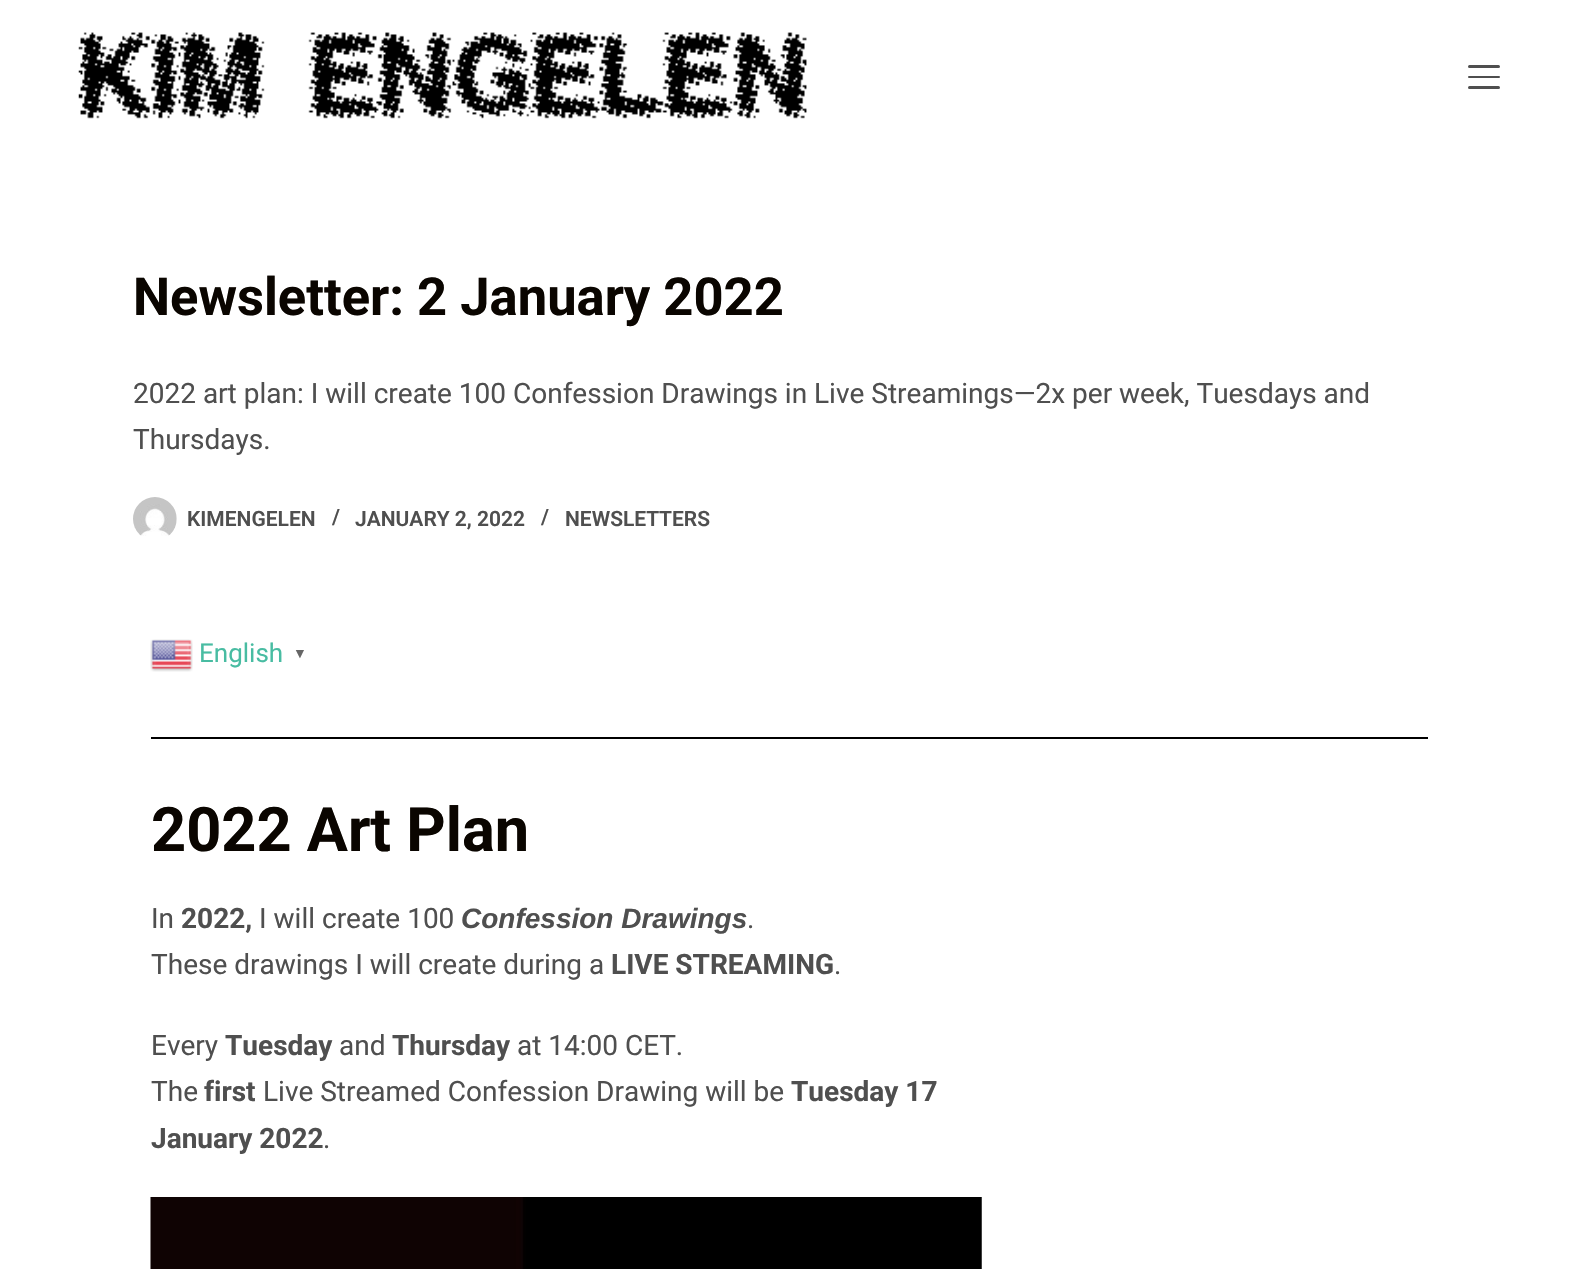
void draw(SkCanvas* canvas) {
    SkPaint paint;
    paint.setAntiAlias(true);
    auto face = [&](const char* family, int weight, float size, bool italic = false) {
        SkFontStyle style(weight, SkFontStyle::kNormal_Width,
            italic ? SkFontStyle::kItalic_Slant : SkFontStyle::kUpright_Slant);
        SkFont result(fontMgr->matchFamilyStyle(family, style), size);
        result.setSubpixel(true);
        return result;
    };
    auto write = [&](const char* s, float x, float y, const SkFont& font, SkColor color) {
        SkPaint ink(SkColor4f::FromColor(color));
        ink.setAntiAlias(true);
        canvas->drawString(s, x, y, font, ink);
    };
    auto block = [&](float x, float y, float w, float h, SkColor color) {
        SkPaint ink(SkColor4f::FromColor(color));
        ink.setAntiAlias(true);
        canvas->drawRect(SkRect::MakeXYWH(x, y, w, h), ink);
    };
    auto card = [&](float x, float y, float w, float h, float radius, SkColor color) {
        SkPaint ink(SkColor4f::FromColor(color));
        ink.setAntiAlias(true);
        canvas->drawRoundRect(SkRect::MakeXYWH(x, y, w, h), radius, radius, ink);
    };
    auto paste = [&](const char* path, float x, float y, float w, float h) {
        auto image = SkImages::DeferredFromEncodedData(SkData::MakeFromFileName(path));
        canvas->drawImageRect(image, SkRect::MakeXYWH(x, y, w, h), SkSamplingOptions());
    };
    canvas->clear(SK_ColorWHITE);
    paste("pic1.png", 78, 32, 729, 87);
    card(1468, 65, 32, 3, 1.5f, SkColorSetRGB(79, 79, 79));
    card(1468, 76, 32, 2, 1, SkColorSetRGB(79, 79, 79));
    card(1468, 86, 32, 3, 1.5f, SkColorSetRGB(79, 79, 79));
    auto kFont1 = face("Roboto", 700, 52.5f);
    write("Newsletter: 2 January 2022", 133, 315, kFont1, SkColorSetRGB(10, 5, 0));
    auto kFont2 = face("Roboto", 400, 28);
    write("2022 art plan: I will create 100 Confession Drawings in Live Streamings—2x per week, Tuesdays and", 133, 403, kFont2, SkColorSetRGB(79, 79, 79));
    write("Thursdays.", 133, 449, kFont2, SkColorSetRGB(79, 79, 79));
    paste("pic2.png", 133, 497, 44, 39);
    auto kFont3 = face("Roboto", 600, 21);
    write("KIMENGELEN", 187, 526, kFont3, SkColorSetRGB(79, 79, 79));
    write("/", 332, 524, kFont3, SkColorSetRGB(79, 79, 79));
    write("JANUARY 2, 2022", 355, 526, kFont3, SkColorSetRGB(79, 79, 79));
    write("/", 541, 524, kFont3, SkColorSetRGB(79, 79, 79));
    write("NEWSLETTERS", 565, 526, kFont3, SkColorSetRGB(79, 79, 79));
    paste("pic3.png", 150, 639, 43, 33);
    auto kFont4 = face("Roboto", 400, 26);
    write("English", 199, 662, kFont4, SkColorSetRGB(72, 188, 162));
    auto kFont5 = face("Liberation Sans", 700, 14);
    write("▼", 293, 658, kFont5, SkColorSetRGB(102, 102, 102));
    block(151, 737, 1277, 2, SK_ColorBLACK);
    auto kFont6 = face("Roboto", 700, 61.25f);
    write("2022 Art Plan", 151, 851, kFont6, SkColorSetRGB(10, 5, 0));
    write("In", 151, 928, kFont2, SkColorSetRGB(79, 79, 79));
    auto kFont7 = face("Roboto", 700, 28);
    write("2022,", 181, 928, kFont7, SkColorSetRGB(79, 79, 79));
    write("I will create 100", 259, 928, kFont2, SkColorSetRGB(79, 79, 79));
    auto kFont8 = face("Liberation Sans", 700, 28, true);
    write("Confession Drawings", 461, 928, kFont8, SkColorSetRGB(79, 79, 79));
    write(".", 747, 928, kFont2, SkColorSetRGB(79, 79, 79));
    write("These drawings I will create during a", 151, 974, kFont2, SkColorSetRGB(79, 79, 79));
    write("LIVE STREAMING", 611, 974, kFont7, SkColorSetRGB(79, 79, 79));
    write(".", 834, 974, kFont2, SkColorSetRGB(79, 79, 79));
    write("Every", 151, 1055, kFont2, SkColorSetRGB(79, 79, 79));
    write("Tuesday", 225, 1055, kFont7, SkColorSetRGB(79, 79, 79));
    write("and", 339, 1055, kFont2, SkColorSetRGB(79, 79, 79));
    write("Thursday", 392, 1055, kFont7, SkColorSetRGB(79, 79, 79));
    write("at 14:00 CET.", 517, 1055, kFont2, SkColorSetRGB(79, 79, 79));
    write("The", 151, 1101, kFont2, SkColorSetRGB(79, 79, 79));
    write("first", 204, 1101, kFont7, SkColorSetRGB(79, 79, 79));
    write("Live Streamed Confession Drawing will be", 263, 1101, kFont2, SkColorSetRGB(79, 79, 79));
    write("Tuesday 17", 791, 1101, kFont7, SkColorSetRGB(79, 79, 79));
    write("January 2022", 151, 1148, kFont7, SkColorSetRGB(79, 79, 79));
    write(".", 323, 1148, kFont2, SkColorSetRGB(79, 79, 79));
    paste("pic4.png", 150, 1197, 832, 72);
}
